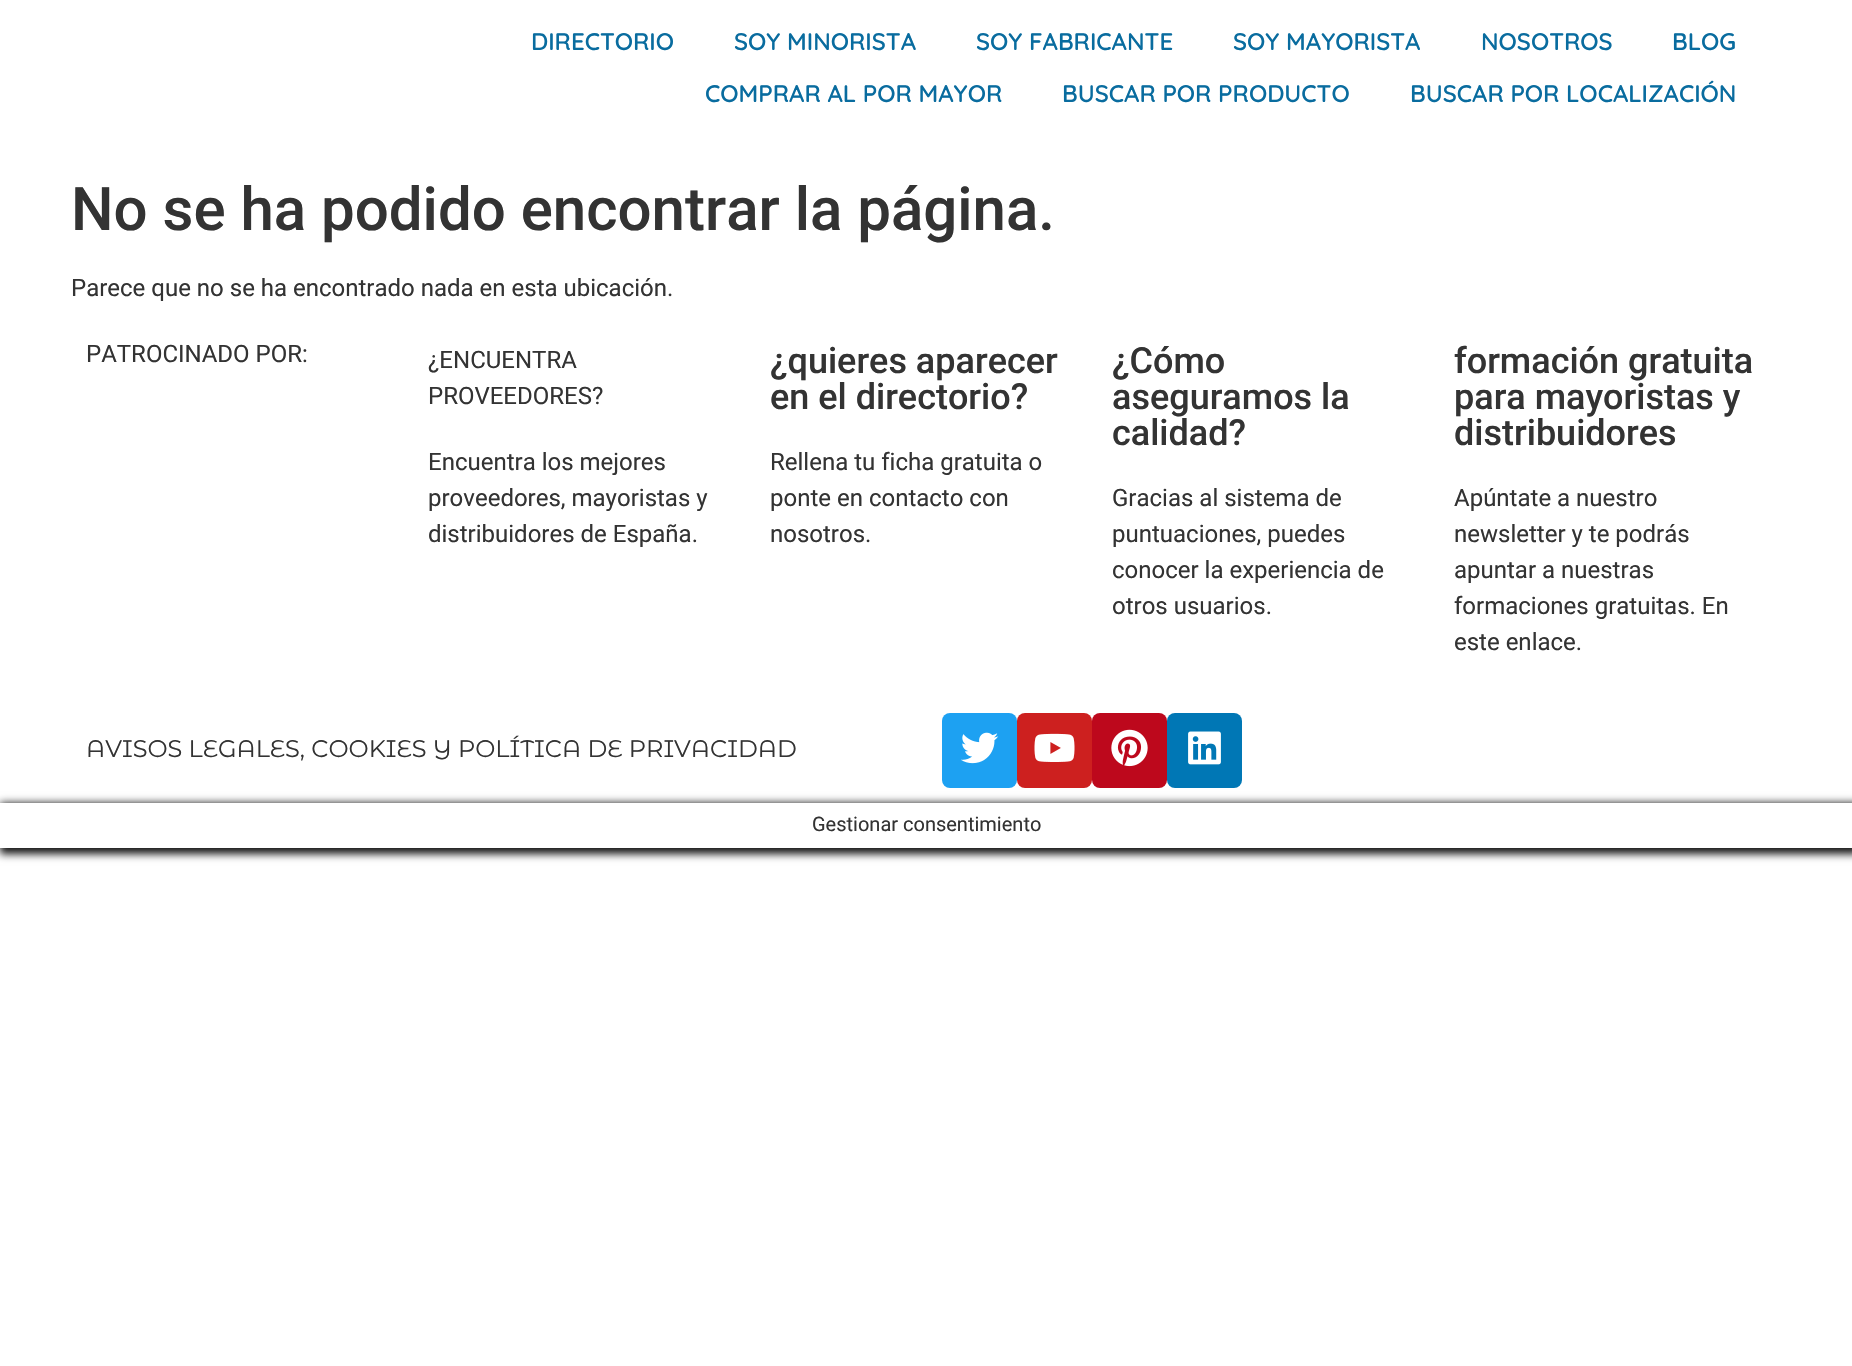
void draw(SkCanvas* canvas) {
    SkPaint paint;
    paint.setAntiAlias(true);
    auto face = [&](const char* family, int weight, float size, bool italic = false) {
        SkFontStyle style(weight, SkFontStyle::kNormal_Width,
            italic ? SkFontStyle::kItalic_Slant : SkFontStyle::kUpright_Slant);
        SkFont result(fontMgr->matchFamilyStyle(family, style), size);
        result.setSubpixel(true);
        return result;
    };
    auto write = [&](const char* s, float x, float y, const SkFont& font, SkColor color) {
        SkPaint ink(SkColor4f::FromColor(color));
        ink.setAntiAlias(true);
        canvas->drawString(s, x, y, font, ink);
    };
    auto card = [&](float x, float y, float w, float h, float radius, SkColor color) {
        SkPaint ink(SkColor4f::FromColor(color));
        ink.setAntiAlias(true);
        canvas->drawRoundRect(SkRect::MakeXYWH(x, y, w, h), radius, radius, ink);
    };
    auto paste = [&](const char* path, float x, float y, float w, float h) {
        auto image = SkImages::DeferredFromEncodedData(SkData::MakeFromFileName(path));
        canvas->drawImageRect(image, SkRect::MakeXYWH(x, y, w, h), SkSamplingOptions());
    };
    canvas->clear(SK_ColorWHITE);
    auto kFont1 = face("Quicksand", 600, 24);
    write("DIRECTORIO", 531, 50, kFont1, SkColorSetRGB(9, 108, 159));
    write("SOY MINORISTA", 734, 50, kFont1, SkColorSetRGB(9, 108, 159));
    write("SOY FABRICANTE", 976, 50, kFont1, SkColorSetRGB(9, 108, 159));
    write("SOY MAYORISTA", 1233, 50, kFont1, SkColorSetRGB(9, 108, 159));
    write("NOSOTROS", 1481, 50, kFont1, SkColorSetRGB(9, 108, 159));
    write("BLOG", 1672, 50, kFont1, SkColorSetRGB(9, 108, 159));
    write("COMPRAR AL POR MAYOR", 705, 102, kFont1, SkColorSetRGB(9, 108, 159));
    write("BUSCAR POR PRODUCTO", 1062, 102, kFont1, SkColorSetRGB(9, 108, 159));
    write("BUSCAR POR LOCALIZACIÓN", 1410, 102, kFont1, SkColorSetRGB(9, 108, 159));
    auto kFont2 = face("Roboto", 500, 60);
    write("No se ha podido encontrar la página.", 71, 230, kFont2, SkColorSetRGB(51, 51, 51));
    auto kFont3 = face("Roboto", 400, 24);
    write("Parece que no se ha encontrado nada en esta ubicación.", 71, 296, kFont3, SkColorSetRGB(51, 51, 51));
    write("PATROCINADO POR:", 86, 362, kFont3, SkColorSetRGB(51, 51, 51));
    write("¿ENCUENTRA", 428, 368, kFont3, SkColorSetRGB(51, 51, 51));
    write("PROVEEDORES?", 428, 404, kFont3, SkColorSetRGB(51, 51, 51));
    write("Encuentra los mejores", 428, 470, kFont3, SkColorSetRGB(51, 51, 51));
    write("proveedores, mayoristas y", 428, 506, kFont3, SkColorSetRGB(51, 51, 51));
    write("distribuidores de España.", 428, 542, kFont3, SkColorSetRGB(51, 51, 51));
    auto kFont4 = face("Roboto", 500, 36);
    write("¿quieres aparecer", 770, 373, kFont4, SkColorSetRGB(51, 51, 51));
    write("en el directorio?", 770, 409, kFont4, SkColorSetRGB(51, 51, 51));
    write("Rellena tu ficha gratuita o", 770, 470, kFont3, SkColorSetRGB(51, 51, 51));
    write("ponte en contacto con", 770, 506, kFont3, SkColorSetRGB(51, 51, 51));
    write("nosotros.", 770, 542, kFont3, SkColorSetRGB(51, 51, 51));
    write("¿Cómo", 1112, 373, kFont4, SkColorSetRGB(51, 51, 51));
    write("aseguramos la", 1112, 409, kFont4, SkColorSetRGB(51, 51, 51));
    write("calidad?", 1112, 445, kFont4, SkColorSetRGB(51, 51, 51));
    write("Gracias al sistema de", 1112, 506, kFont3, SkColorSetRGB(51, 51, 51));
    write("puntuaciones, puedes", 1112, 542, kFont3, SkColorSetRGB(51, 51, 51));
    write("conocer la experiencia de", 1112, 578, kFont3, SkColorSetRGB(51, 51, 51));
    write("otros usuarios.", 1112, 614, kFont3, SkColorSetRGB(51, 51, 51));
    write("formación gratuita", 1454, 373, kFont4, SkColorSetRGB(51, 51, 51));
    write("para mayoristas y", 1454, 409, kFont4, SkColorSetRGB(51, 51, 51));
    write("distribuidores", 1454, 445, kFont4, SkColorSetRGB(51, 51, 51));
    write("Apúntate a nuestro", 1454, 506, kFont3, SkColorSetRGB(51, 51, 51));
    write("newsletter y te podrás", 1454, 542, kFont3, SkColorSetRGB(51, 51, 51));
    write("apuntar a nuestras", 1454, 578, kFont3, SkColorSetRGB(51, 51, 51));
    write("formaciones gratuitas. En", 1454, 614, kFont3, SkColorSetRGB(51, 51, 51));
    write("este enlace.", 1454, 650, kFont3, SkColorSetRGB(51, 51, 51));
    auto kFont5 = face("Montserrat Alternates", 400, 24);
    write("AVISOS LEGALES, COOKIES Y POLÍTICA DE PRIVACIDAD", 86, 757, kFont5, SkColorSetRGB(51, 51, 51));
    card(942, 713, 75, 75, 8, SkColorSetRGB(29, 161, 242));
    paste("pic1.png", 961, 732, 38, 32);
    card(1017, 713, 75, 75, 8, SkColorSetRGB(205, 32, 31));
    paste("pic2.png", 1034, 733, 41, 29);
    card(1092, 713, 75, 75, 8, SkColorSetRGB(189, 8, 28));
    paste("pic3.png", 1111, 729, 37, 38);
    card(1167, 713, 75, 75, 8, SkColorSetRGB(0, 119, 181));
    paste("pic4.png", 1188, 731, 33, 34);
    canvas->save();
    canvas->clipPath(SkPathBuilder(SkPathFillType::kEvenOdd).moveTo(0, 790).lineTo(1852, 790).lineTo(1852, 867).lineTo(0, 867).close().moveTo(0, 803).lineTo(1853, 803).lineTo(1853, 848).lineTo(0, 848).close().detach(), true);
    paint.setColor(SkColorSetRGB(22, 22, 22));
    paint.setMaskFilter(SkMaskFilter::MakeBlur(kNormal_SkBlurStyle, 4));
    canvas->drawRect(SkRect::MakeXYWH(0, 803, 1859, 51), paint);
    paint.setMaskFilter(nullptr);
    canvas->restore();
    auto kFont6 = face("Roboto", 400, 20);
    write("Gestionar consentimiento", 812, 831, kFont6, SkColorSetRGB(51, 51, 51));
}
